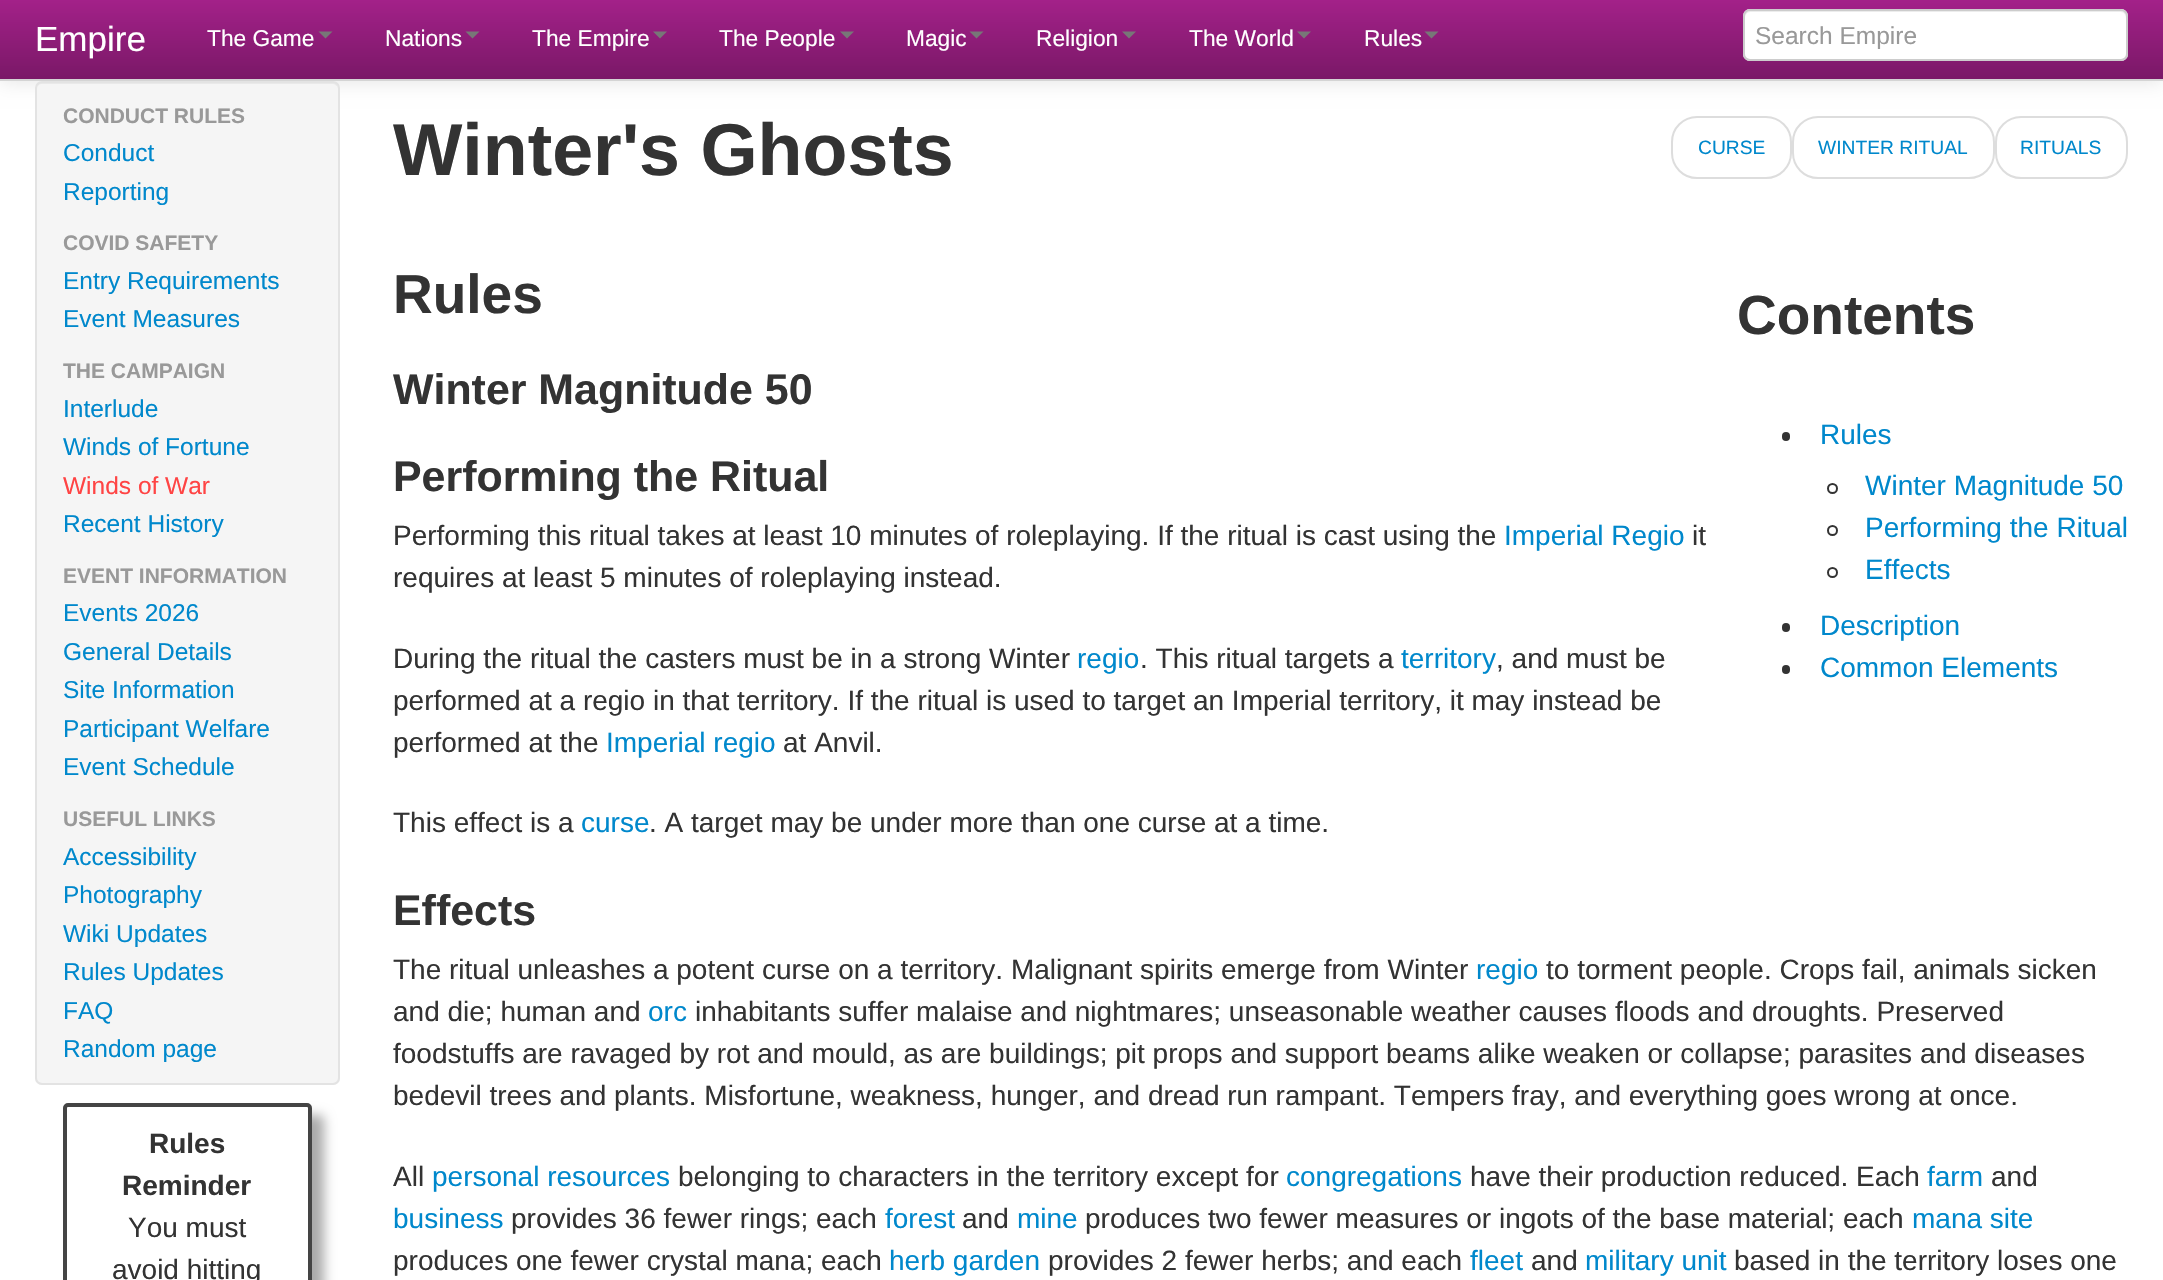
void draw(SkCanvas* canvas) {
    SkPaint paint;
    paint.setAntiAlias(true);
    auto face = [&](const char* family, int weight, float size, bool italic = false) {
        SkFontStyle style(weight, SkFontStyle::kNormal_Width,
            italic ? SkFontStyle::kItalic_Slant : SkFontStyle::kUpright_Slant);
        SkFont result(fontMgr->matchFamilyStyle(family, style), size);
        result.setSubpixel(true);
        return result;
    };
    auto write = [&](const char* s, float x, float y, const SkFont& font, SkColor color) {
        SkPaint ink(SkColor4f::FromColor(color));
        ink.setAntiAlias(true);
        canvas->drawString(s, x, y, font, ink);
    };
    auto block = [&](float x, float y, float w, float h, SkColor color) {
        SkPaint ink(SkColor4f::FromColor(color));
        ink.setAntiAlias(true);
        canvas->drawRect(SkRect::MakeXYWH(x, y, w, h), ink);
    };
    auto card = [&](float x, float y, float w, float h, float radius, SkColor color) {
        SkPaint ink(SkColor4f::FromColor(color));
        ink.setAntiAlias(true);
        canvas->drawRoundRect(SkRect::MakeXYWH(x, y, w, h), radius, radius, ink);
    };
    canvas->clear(SK_ColorWHITE);
    paint.setColor(SkColorSetARGB(26, 0, 0, 0));
    paint.setMaskFilter(SkMaskFilter::MakeBlur(kNormal_SkBlurStyle, 9));
    canvas->drawRect(SkRect::MakeXYWH(0, 2, 2163, 80), paint);
    paint.setMaskFilter(nullptr);
    {
        const SkColor colors[] = {SkColorSetRGB(163, 33, 137), SkColorSetRGB(122, 24, 103)};
        const float stops[] = {0, 1};
        const SkPoint ends[] = {{1082, 0}, {1082, 79}};
        paint.setShader(SkGradientShader::MakeLinear(ends, colors, stops, 2, SkTileMode::kClamp));
        paint.setAlpha(255);
    }
    canvas->drawRect(SkRect::MakeXYWH(0, 0, 2163, 79), paint);
    block(0, 79, 2163, 2, SkColorSetRGB(212, 212, 212));
    auto kFont1 = face("Liberation Sans", 400, 35);
    write("Empire", 35, 51, kFont1, SK_ColorWHITE);
    auto kFont2 = face("Liberation Sans", 400, 22.75f);
    write("The Game", 207, 46, kFont2, SK_ColorWHITE);
    paint.setShader(nullptr);
    paint.setColor(SkColorSetRGB(119, 119, 119));
    canvas->drawPath(SkPathBuilder().moveTo(318.5f, 31.5f).lineTo(332.5f, 31.5f).lineTo(325.5f, 38.5f).close().detach(), paint);
    write("Nations", 385, 46, kFont2, SK_ColorWHITE);
    canvas->drawPath(SkPathBuilder().moveTo(465.5f, 31.5f).lineTo(479.5f, 31.5f).lineTo(472.5f, 38.5f).close().detach(), paint);
    write("The Empire", 532, 46, kFont2, SK_ColorWHITE);
    canvas->drawPath(SkPathBuilder().moveTo(653, 31.5f).lineTo(667, 31.5f).lineTo(660, 38.5f).close().detach(), paint);
    write("The People", 719, 46, kFont2, SK_ColorWHITE);
    canvas->drawPath(SkPathBuilder().moveTo(840, 31.5f).lineTo(854, 31.5f).lineTo(847, 38.5f).close().detach(), paint);
    write("Magic", 906, 46, kFont2, SK_ColorWHITE);
    canvas->drawPath(SkPathBuilder().moveTo(969.5f, 31.5f).lineTo(983.5f, 31.5f).lineTo(976.5f, 38.5f).close().detach(), paint);
    write("Religion", 1036, 46, kFont2, SK_ColorWHITE);
    canvas->drawPath(SkPathBuilder().moveTo(1122, 31.5f).lineTo(1136, 31.5f).lineTo(1129, 38.5f).close().detach(), paint);
    write("The World", 1189, 46, kFont2, SK_ColorWHITE);
    canvas->drawPath(SkPathBuilder().moveTo(1297, 31.5f).lineTo(1311, 31.5f).lineTo(1304, 38.5f).close().detach(), paint);
    write("Rules", 1364, 46, kFont2, SK_ColorWHITE);
    canvas->drawPath(SkPathBuilder().moveTo(1424.5f, 31.5f).lineTo(1438.5f, 31.5f).lineTo(1431.5f, 38.5f).close().detach(), paint);
    card(1743, 9, 385, 52, 7, SK_ColorWHITE);
    paint.setColor(SkColorSetRGB(236, 236, 236));
    canvas->drawPath(SkPathBuilder().moveTo(1750, 12).lineTo(2121, 12).cubicTo(2124, 12, 2126, 15, 2126, 18).lineTo(2126, 16).cubicTo(2126, 13, 2124, 11, 2121, 11).lineTo(1750, 11).cubicTo(1747, 11, 1745, 13, 1745, 16).lineTo(1745, 18).cubicTo(1745, 15, 1747, 12, 1750, 12).close().detach(), paint);
    paint.setStyle(SkPaint::kStroke_Style);
    paint.setStrokeWidth(2);
    paint.setColor(SkColorSetRGB(204, 204, 204));
    canvas->drawRoundRect(SkRect::MakeXYWH(1744, 10, 383, 50), 6, 6, paint);
    auto kFont3 = face("Liberation Sans", 400, 24.5f);
    write("Search Empire", 1755, 44, kFont3, SkColorSetRGB(153, 153, 153));
    card(35, 81, 305, 1004, 7, SkColorSetRGB(245, 245, 245));
    paint.setStyle(SkPaint::kFill_Style);
    paint.setColor(SkColorSetRGB(233, 233, 233));
    canvas->drawPath(SkPathBuilder().moveTo(42, 84).lineTo(332, 84).cubicTo(335, 84, 338, 86, 338, 89).cubicTo(338, 86, 337, 82, 333, 82).lineTo(42, 82).cubicTo(38, 82, 37, 86, 37, 89).cubicTo(37, 86, 39, 84, 42, 84).close().detach(), paint);
    paint.setStyle(SkPaint::kStroke_Style);
    paint.setColor(SkColorSetRGB(227, 227, 227));
    canvas->drawRoundRect(SkRect::MakeXYWH(36, 82, 303, 1002), 6, 6, paint);
    auto kFont4 = face("Liberation Sans", 700, 21);
    write("CONDUCT RULES", 63, 123, kFont4, SkColorSetRGB(153, 153, 153));
    write("Conduct", 63, 161, kFont3, SkColorSetRGB(0, 136, 204));
    write("Reporting", 63, 200, kFont3, SkColorSetRGB(0, 136, 204));
    write("COVID SAFETY", 63, 250, kFont4, SkColorSetRGB(153, 153, 153));
    write("Entry Requirements", 63, 289, kFont3, SkColorSetRGB(0, 136, 204));
    write("Event Measures", 63, 327, kFont3, SkColorSetRGB(0, 136, 204));
    write("THE CAMPAIGN", 63, 378, kFont4, SkColorSetRGB(153, 153, 153));
    write("Interlude", 63, 417, kFont3, SkColorSetRGB(0, 136, 204));
    write("Winds of Fortune", 63, 455, kFont3, SkColorSetRGB(0, 136, 204));
    write("Winds of War", 63, 494, kFont3, SkColorSetRGB(255, 68, 68));
    write("Recent History", 63, 532, kFont3, SkColorSetRGB(0, 136, 204));
    write("EVENT INFORMATION", 63, 583, kFont4, SkColorSetRGB(153, 153, 153));
    write("Events 2026", 63, 621, kFont3, SkColorSetRGB(0, 136, 204));
    write("General Details", 63, 660, kFont3, SkColorSetRGB(0, 136, 204));
    write("Site Information", 63, 698, kFont3, SkColorSetRGB(0, 136, 204));
    write("Participant Welfare", 63, 737, kFont3, SkColorSetRGB(0, 136, 204));
    write("Event Schedule", 63, 775, kFont3, SkColorSetRGB(0, 136, 204));
    write("USEFUL LINKS", 63, 826, kFont4, SkColorSetRGB(153, 153, 153));
    write("Accessibility", 63, 865, kFont3, SkColorSetRGB(0, 136, 204));
    write("Photography", 63, 903, kFont3, SkColorSetRGB(0, 136, 204));
    write("Wiki Updates", 63, 942, kFont3, SkColorSetRGB(0, 136, 204));
    write("Rules Updates", 63, 980, kFont3, SkColorSetRGB(0, 136, 204));
    write("FAQ", 63, 1019, kFont3, SkColorSetRGB(0, 136, 204));
    write("Random page", 63, 1057, kFont3, SkColorSetRGB(0, 136, 204));
    canvas->save();
    canvas->clipPath(SkPathBuilder(SkPathFillType::kEvenOdd).moveTo(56, 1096).lineTo(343, 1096).lineTo(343, 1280).lineTo(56, 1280).close().moveTo(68, 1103).lineTo(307, 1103).cubicTo(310, 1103, 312, 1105, 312, 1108).lineTo(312, 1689).cubicTo(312, 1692, 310, 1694, 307, 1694).lineTo(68, 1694).cubicTo(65, 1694, 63, 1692, 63, 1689).lineTo(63, 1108).cubicTo(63, 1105, 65, 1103, 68, 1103).close().detach(), true);
    paint.setStyle(SkPaint::kFill_Style);
    paint.setColor(SkColorSetRGB(170, 170, 170));
    paint.setMaskFilter(SkMaskFilter::MakeBlur(kNormal_SkBlurStyle, 6));
    canvas->drawRoundRect(SkRect::MakeXYWH(75, 1115, 249, 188), 5, 5, paint);
    paint.setMaskFilter(nullptr);
    canvas->restore();
    paint.setStyle(SkPaint::kStroke_Style);
    paint.setStrokeWidth(4);
    paint.setColor(SkColorSetRGB(68, 68, 68));
    canvas->drawRoundRect(SkRect::MakeXYWH(65, 1105, 245, 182), 3, 3, paint);
    auto kFont5 = face("Liberation Sans", 700, 28);
    write("Rules", 149, 1153, kFont5, SkColorSetRGB(51, 51, 51));
    write("Reminder", 122, 1195, kFont5, SkColorSetRGB(51, 51, 51));
    auto kFont6 = face("Liberation Sans", 400, 28);
    write("You must", 128, 1237, kFont6, SkColorSetRGB(51, 51, 51));
    write("avoid hitting", 112, 1279, kFont6, SkColorSetRGB(51, 51, 51));
    auto kFont7 = face("Liberation Sans", 700, 73.5f);
    write("Winter's Ghosts", 393, 175, kFont7, SkColorSetRGB(51, 51, 51));
    paint.setStrokeWidth(2);
    paint.setColor(SkColorSetRGB(221, 221, 221));
    canvas->drawRoundRect(SkRect::MakeXYWH(1672, 117, 119, 61), 25, 25, paint);
    auto kFont8 = face("Liberation Sans", 400, 19.25f);
    write("CURSE", 1698, 154, kFont8, SkColorSetRGB(0, 136, 204));
    canvas->drawRoundRect(SkRect::MakeXYWH(1793, 117, 201, 61), 25, 25, paint);
    write("WINTER RITUAL", 1818, 154, kFont8, SkColorSetRGB(0, 136, 204));
    canvas->drawRoundRect(SkRect::MakeXYWH(1996, 117, 131, 61), 25, 25, paint);
    write("RITUALS", 2020, 154, kFont8, SkColorSetRGB(0, 136, 204));
    auto kFont9 = face("Liberation Sans", 700, 55);
    write("Rules", 393, 313, kFont9, SkColorSetRGB(51, 51, 51));
    write("Contents", 1737, 334, kFont9, SkColorSetRGB(51, 51, 51));
    card(1782, 432, 8, 9, 4, SkColorSetRGB(51, 51, 51));
    write("Rules", 1820, 444, kFont6, SkColorSetRGB(0, 136, 204));
    paint.setColor(SkColorSetRGB(51, 51, 51));
    canvas->drawCircle(1832.5f, 488.5f, 4.5f, paint);
    write("Winter Magnitude 50", 1865, 495, kFont6, SkColorSetRGB(0, 136, 204));
    canvas->drawCircle(1832.5f, 530.5f, 4.5f, paint);
    write("Performing the Ritual", 1865, 537, kFont6, SkColorSetRGB(0, 136, 204));
    canvas->drawCircle(1832.5f, 572.5f, 4.5f, paint);
    write("Effects", 1865, 579, kFont6, SkColorSetRGB(0, 136, 204));
    card(1782, 623, 8, 9, 4, SkColorSetRGB(51, 51, 51));
    write("Description", 1820, 635, kFont6, SkColorSetRGB(0, 136, 204));
    card(1782, 665, 8, 9, 4, SkColorSetRGB(51, 51, 51));
    write("Common Elements", 1820, 677, kFont6, SkColorSetRGB(0, 136, 204));
    auto kFont10 = face("Liberation Sans", 700, 42.9f);
    write("Winter Magnitude 50", 393, 404, kFont10, SkColorSetRGB(51, 51, 51));
    write("Performing the Ritual", 393, 491, kFont10, SkColorSetRGB(51, 51, 51));
    write("Performing this ritual takes at least 10 minutes of roleplaying. If the ritual is cast using the", 393, 545, kFont6, SkColorSetRGB(51, 51, 51));
    write("Imperial Regio", 1504, 545, kFont6, SkColorSetRGB(0, 136, 204));
    write("it", 1692, 545, kFont6, SkColorSetRGB(51, 51, 51));
    write("requires at least 5 minutes of roleplaying instead.", 393, 587, kFont6, SkColorSetRGB(51, 51, 51));
    write("During the ritual the casters must be in a strong Winter", 393, 668, kFont6, SkColorSetRGB(51, 51, 51));
    write("regio", 1077, 668, kFont6, SkColorSetRGB(0, 136, 204));
    write(". This ritual targets a", 1140, 668, kFont6, SkColorSetRGB(51, 51, 51));
    write("territory", 1401, 668, kFont6, SkColorSetRGB(0, 136, 204));
    write(", and must be", 1496, 668, kFont6, SkColorSetRGB(51, 51, 51));
    write("performed at a regio in that territory. If the ritual is used to target an Imperial territory, it may instead be", 393, 710, kFont6, SkColorSetRGB(51, 51, 51));
    write("performed at the", 393, 752, kFont6, SkColorSetRGB(51, 51, 51));
    write("Imperial regio", 606, 752, kFont6, SkColorSetRGB(0, 136, 204));
    write("at Anvil.", 783, 752, kFont6, SkColorSetRGB(51, 51, 51));
    write("This effect is a", 393, 832, kFont6, SkColorSetRGB(51, 51, 51));
    write("curse", 581, 832, kFont6, SkColorSetRGB(0, 136, 204));
    write(". A target may be under more than one curse at a time.", 649, 832, kFont6, SkColorSetRGB(51, 51, 51));
    write("Effects", 393, 925, kFont10, SkColorSetRGB(51, 51, 51));
    write("The ritual unleashes a potent curse on a territory. Malignant spirits emerge from Winter", 393, 979, kFont6, SkColorSetRGB(51, 51, 51));
    write("regio", 1476, 979, kFont6, SkColorSetRGB(0, 136, 204));
    write("to torment people. Crops fail, animals sicken", 1546, 979, kFont6, SkColorSetRGB(51, 51, 51));
    write("and die; human and", 393, 1021, kFont6, SkColorSetRGB(51, 51, 51));
    write("orc", 648, 1021, kFont6, SkColorSetRGB(0, 136, 204));
    write("inhabitants suffer malaise and nightmares; unseasonable weather causes floods and droughts. Preserved", 695, 1021, kFont6, SkColorSetRGB(51, 51, 51));
    write("foodstuffs are ravaged by rot and mould, as are buildings; pit props and support beams alike weaken or collapse; parasites and diseases", 393, 1063, kFont6, SkColorSetRGB(51, 51, 51));
    write("bedevil trees and plants. Misfortune, weakness, hunger, and dread run rampant. Tempers fray, and everything goes wrong at once.", 393, 1105, kFont6, SkColorSetRGB(51, 51, 51));
    write("All", 393, 1186, kFont6, SkColorSetRGB(51, 51, 51));
    write("personal resources", 432, 1186, kFont6, SkColorSetRGB(0, 136, 204));
    write("belonging to characters in the territory except for", 678, 1186, kFont6, SkColorSetRGB(51, 51, 51));
    write("congregations", 1286, 1186, kFont6, SkColorSetRGB(0, 136, 204));
    write("have their production reduced. Each", 1470, 1186, kFont6, SkColorSetRGB(51, 51, 51));
    write("farm", 1927, 1186, kFont6, SkColorSetRGB(0, 136, 204));
    write("and", 1991, 1186, kFont6, SkColorSetRGB(51, 51, 51));
    write("business", 393, 1228, kFont6, SkColorSetRGB(0, 136, 204));
    write("provides 36 fewer rings; each", 511, 1228, kFont6, SkColorSetRGB(51, 51, 51));
    write("forest", 885, 1228, kFont6, SkColorSetRGB(0, 136, 204));
    write("and", 962, 1228, kFont6, SkColorSetRGB(51, 51, 51));
    write("mine", 1017, 1228, kFont6, SkColorSetRGB(0, 136, 204));
    write("produces two fewer measures or ingots of the base material; each", 1085, 1228, kFont6, SkColorSetRGB(51, 51, 51));
    write("mana site", 1912, 1228, kFont6, SkColorSetRGB(0, 136, 204));
    write("produces one fewer crystal mana; each", 393, 1270, kFont6, SkColorSetRGB(51, 51, 51));
    write("herb garden", 889, 1270, kFont6, SkColorSetRGB(0, 136, 204));
    write("provides 2 fewer herbs; and each", 1048, 1270, kFont6, SkColorSetRGB(51, 51, 51));
    write("fleet", 1470, 1270, kFont6, SkColorSetRGB(0, 136, 204));
    write("and", 1531, 1270, kFont6, SkColorSetRGB(51, 51, 51));
    write("military unit", 1585, 1270, kFont6, SkColorSetRGB(0, 136, 204));
    write("based in the territory loses one", 1734, 1270, kFont6, SkColorSetRGB(51, 51, 51));
}
